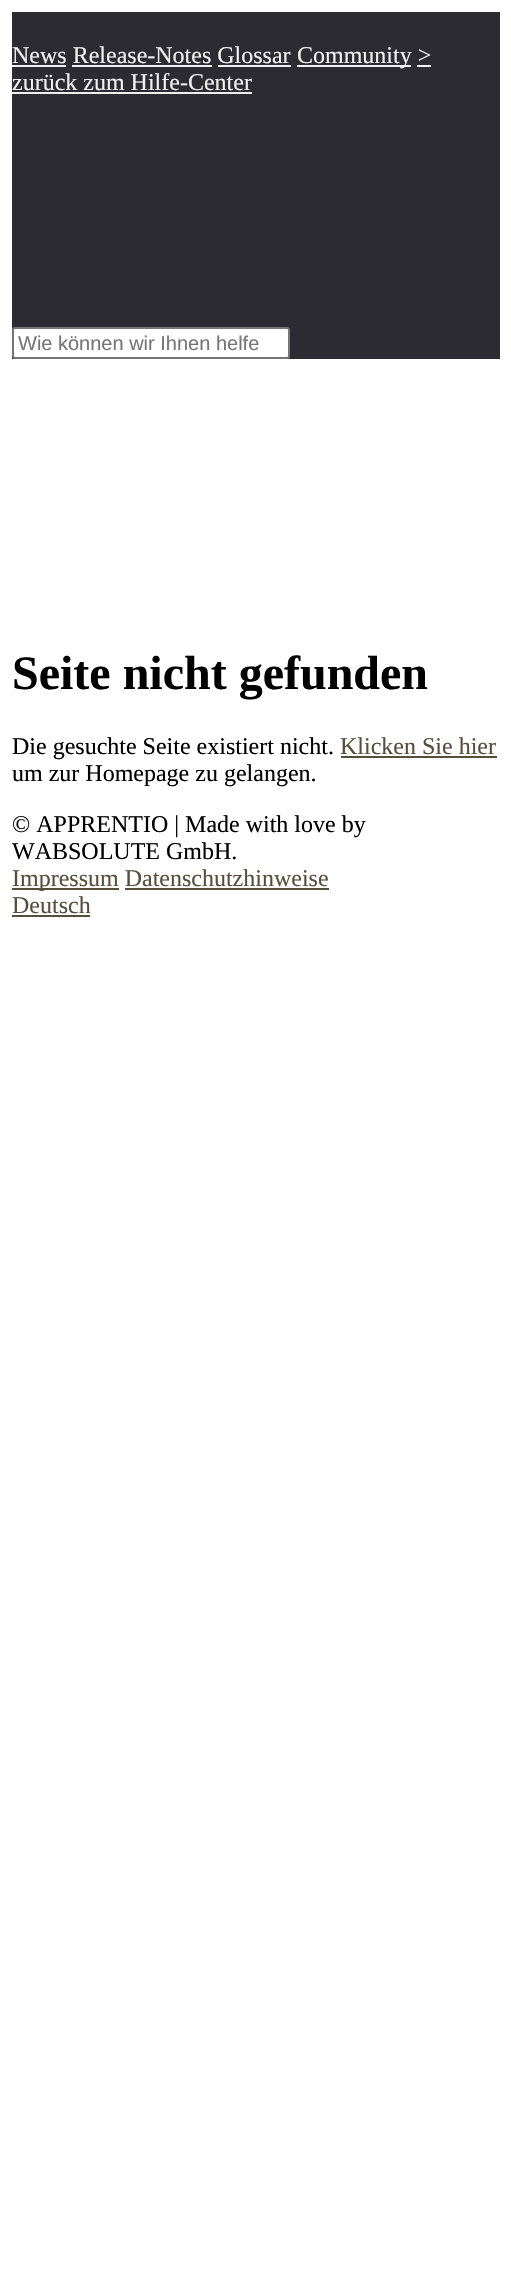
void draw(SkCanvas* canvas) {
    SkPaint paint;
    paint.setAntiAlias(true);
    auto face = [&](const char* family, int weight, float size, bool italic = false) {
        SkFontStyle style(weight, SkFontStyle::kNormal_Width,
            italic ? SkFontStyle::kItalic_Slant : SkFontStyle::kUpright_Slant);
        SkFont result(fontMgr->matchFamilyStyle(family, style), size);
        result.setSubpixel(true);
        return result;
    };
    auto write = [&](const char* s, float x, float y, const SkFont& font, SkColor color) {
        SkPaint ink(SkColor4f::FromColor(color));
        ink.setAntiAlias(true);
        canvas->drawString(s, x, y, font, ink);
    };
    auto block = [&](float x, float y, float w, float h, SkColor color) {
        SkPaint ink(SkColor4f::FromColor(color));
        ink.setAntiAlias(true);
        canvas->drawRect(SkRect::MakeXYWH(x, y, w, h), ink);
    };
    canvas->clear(SK_ColorWHITE);
    block(12, 12, 488, 347, SkColorSetRGB(43, 43, 49));
    auto kFont1 = face("Liberation Serif", 400, 24);
    write("News Release-Notes Glossar", 12, 63, kFont1, SkColorSetRGB(240, 240, 241));
    block(12, 65, 54, 2, SkColorSetRGB(240, 240, 241));
    block(297, 65, 114, 2, SkColorSetRGB(240, 240, 241));
    write("Community >", 297, 63, kFont1, SkColorSetRGB(240, 240, 241));
    block(72, 65, 140, 2, SkColorSetRGB(240, 240, 241));
    block(218, 65, 73, 2, SkColorSetRGB(240, 240, 241));
    write("zurück zum Hilfe-Center", 12, 90, kFont1, SkColorSetRGB(240, 240, 241));
    block(417, 65, 14, 2, SkColorSetRGB(240, 240, 241));
    block(12, 92, 240, 2, SkColorSetRGB(240, 240, 241));
    paint.setColor(SK_ColorWHITE);
    canvas->drawRoundRect(SkRect::MakeXYWH(13, 328, 276, 30), 2, 2, paint);
    paint.setStyle(SkPaint::kStroke_Style);
    paint.setStrokeWidth(2);
    paint.setColor(SkColorSetRGB(118, 118, 118));
    canvas->drawRoundRect(SkRect::MakeXYWH(13, 328, 276, 30), 2, 2, paint);
    auto kFont2 = face("Liberation Sans", 400, 20);
    write("Wie können wir Ihnen helfe", 18, 350, kFont2, SkColorSetRGB(117, 117, 117));
    auto kFont3 = face("Liberation Serif", 700, 48);
    write("Seite nicht gefunden", 12, 689, kFont3, SK_ColorBLACK);
    write("Die gesuchte Seite existiert nicht.", 12, 754, kFont1, SK_ColorBLACK);
    write("Klicken Sie hier", 340, 754, kFont1, SkColorSetRGB(86, 78, 61));
    block(341, 756, 156, 2, SkColorSetRGB(86, 78, 61));
    write("um zur Homepage zu gelangen.", 12, 781, kFont1, SK_ColorBLACK);
    write("© APPRENTIO | Made with love by", 12, 832, kFont1, SK_ColorBLACK);
    write("WABSOLUTE GmbH.", 12, 859, kFont1, SK_ColorBLACK);
    block(12, 888, 107, 2, SkColorSetRGB(86, 78, 61));
    write("Impressum Datenschutzhinweise", 12, 886, kFont1, SkColorSetRGB(86, 78, 61));
    block(125, 888, 204, 2, SkColorSetRGB(86, 78, 61));
    write("Deutsch", 12, 913, kFont1, SkColorSetRGB(86, 78, 61));
    block(12, 915, 78, 2, SkColorSetRGB(86, 78, 61));
}
